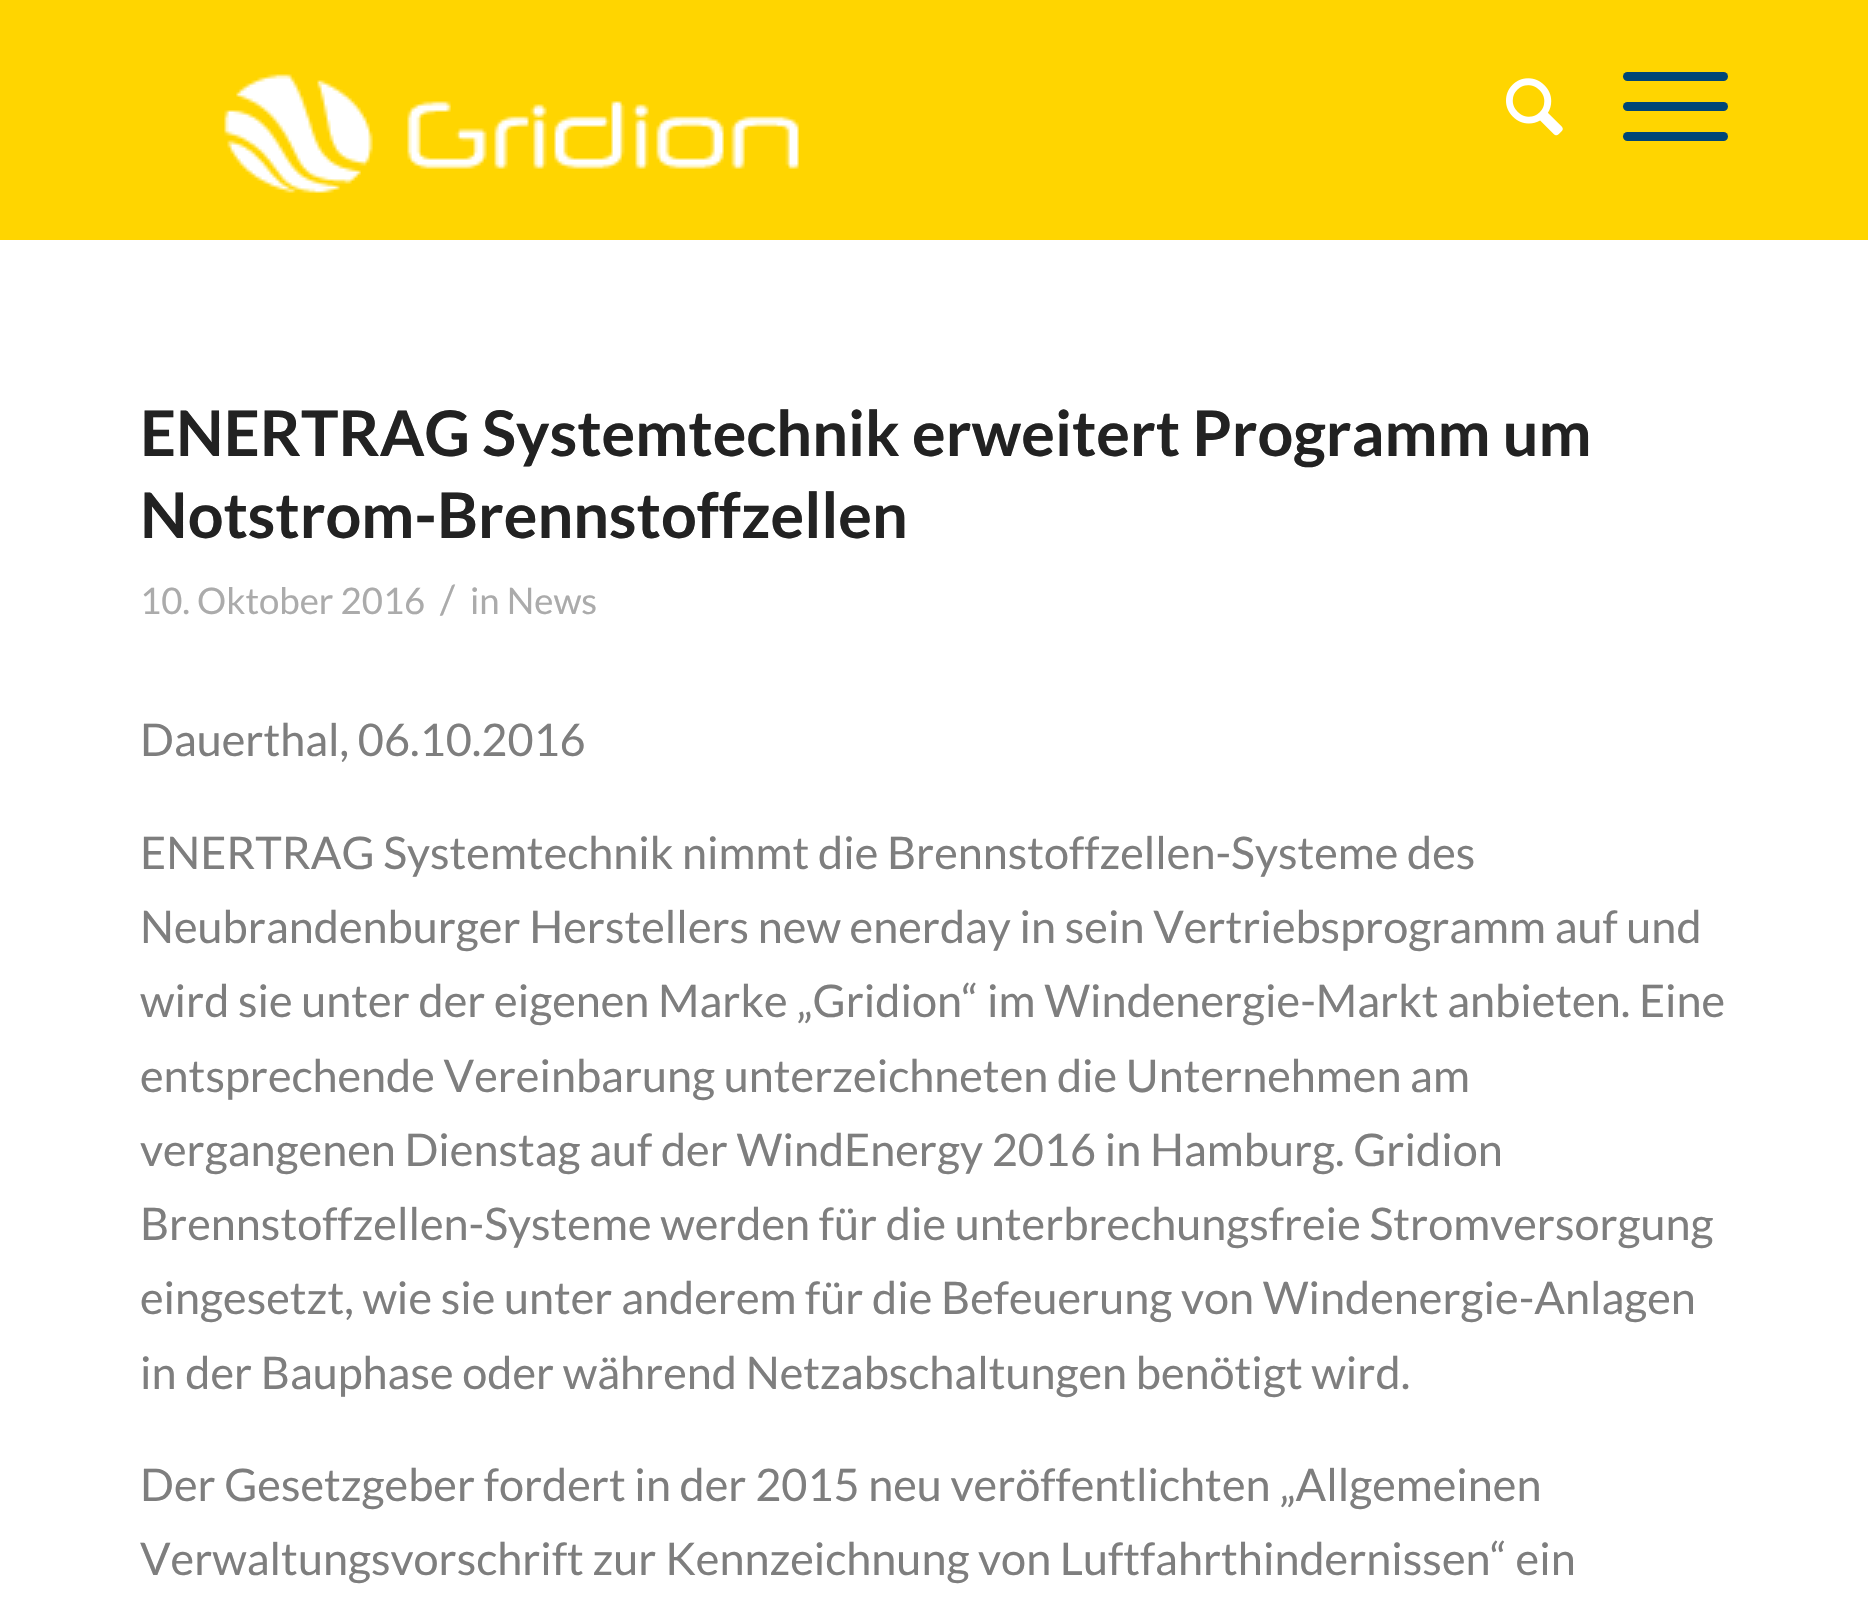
void draw(SkCanvas* canvas) {
    SkPaint paint;
    paint.setAntiAlias(true);
    auto face = [&](const char* family, int weight, float size, bool italic = false) {
        SkFontStyle style(weight, SkFontStyle::kNormal_Width,
            italic ? SkFontStyle::kItalic_Slant : SkFontStyle::kUpright_Slant);
        SkFont result(fontMgr->matchFamilyStyle(family, style), size);
        result.setSubpixel(true);
        return result;
    };
    auto write = [&](const char* s, float x, float y, const SkFont& font, SkColor color) {
        SkPaint ink(SkColor4f::FromColor(color));
        ink.setAntiAlias(true);
        canvas->drawString(s, x, y, font, ink);
    };
    auto block = [&](float x, float y, float w, float h, SkColor color) {
        SkPaint ink(SkColor4f::FromColor(color));
        ink.setAntiAlias(true);
        canvas->drawRect(SkRect::MakeXYWH(x, y, w, h), ink);
    };
    auto card = [&](float x, float y, float w, float h, float radius, SkColor color) {
        SkPaint ink(SkColor4f::FromColor(color));
        ink.setAntiAlias(true);
        canvas->drawRoundRect(SkRect::MakeXYWH(x, y, w, h), radius, radius, ink);
    };
    auto paste = [&](const char* path, float x, float y, float w, float h) {
        auto image = SkImages::DeferredFromEncodedData(SkData::MakeFromFileName(path));
        canvas->drawImageRect(image, SkRect::MakeXYWH(x, y, w, h), SkSamplingOptions());
    };
    canvas->clear(SK_ColorWHITE);
    block(0, 0, 1868, 240, SkColorSetRGB(255, 213, 0));
    paste("pic1.png", 224, 74, 575, 119);
    paste("pic2.png", 1506, 78, 57, 58);
    card(1623, 102, 105, 9, 4.5f, SkColorSetRGB(0, 69, 118));
    card(1623, 72, 105, 9, 4.5f, SkColorSetRGB(0, 69, 118));
    card(1623, 132, 105, 9, 4.5f, SkColorSetRGB(0, 69, 118));
    auto kFont1 = face("Lato", 700, 63);
    write("ENERTRAG Systemtechnik erweitert Programm um", 140, 456, kFont1, SkColorSetRGB(34, 34, 34));
    write("Notstrom-Brennstoffzellen", 140, 538, kFont1, SkColorSetRGB(34, 34, 34));
    auto kFont2 = face("Lato", 400, 36.5f);
    write("10. Oktober 2016", 140, 614, kFont2, SkColorSetRGB(171, 171, 171));
    auto kFont3 = face("Lato", 400, 40);
    write("/", 440, 614, kFont3, SkColorSetRGB(171, 171, 171));
    write("in News", 470, 614, kFont2, SkColorSetRGB(171, 171, 171));
    auto kFont4 = face("Lato", 400, 45);
    write("Dauerthal, 06.10.2016", 140, 756, kFont4, SkColorSetRGB(126, 126, 126));
    write("ENERTRAG Systemtechnik nimmt die Brennstoffzellen-Systeme des", 140, 869, kFont4, SkColorSetRGB(126, 126, 126));
    write("Neubrandenburger Herstellers new enerday in sein Vertriebsprogramm auf und", 140, 943, kFont4, SkColorSetRGB(126, 126, 126));
    write("wird sie unter der eigenen Marke „Gridion“ im Windenergie-Markt anbieten. Eine", 140, 1017, kFont4, SkColorSetRGB(126, 126, 126));
    write("entsprechende Vereinbarung unterzeichneten die Unternehmen am", 140, 1092, kFont4, SkColorSetRGB(126, 126, 126));
    write("vergangenen Dienstag auf der WindEnergy 2016 in Hamburg. Gridion", 140, 1166, kFont4, SkColorSetRGB(126, 126, 126));
    write("Brennstoffzellen-Systeme werden für die unterbrechungsfreie Stromversorgung", 140, 1240, kFont4, SkColorSetRGB(126, 126, 126));
    write("eingesetzt, wie sie unter anderem für die Befeuerung von Windenergie-Anlagen", 140, 1314, kFont4, SkColorSetRGB(126, 126, 126));
    write("in der Bauphase oder während Netzabschaltungen benötigt wird.", 140, 1389, kFont4, SkColorSetRGB(126, 126, 126));
    write("Der Gesetzgeber fordert in der 2015 neu veröffentlichten „Allgemeinen", 140, 1501, kFont4, SkColorSetRGB(126, 126, 126));
    write("Verwaltungsvorschrift zur Kennzeichnung von Luftfahrthindernissen“ ein", 140, 1575, kFont4, SkColorSetRGB(126, 126, 126));
}
